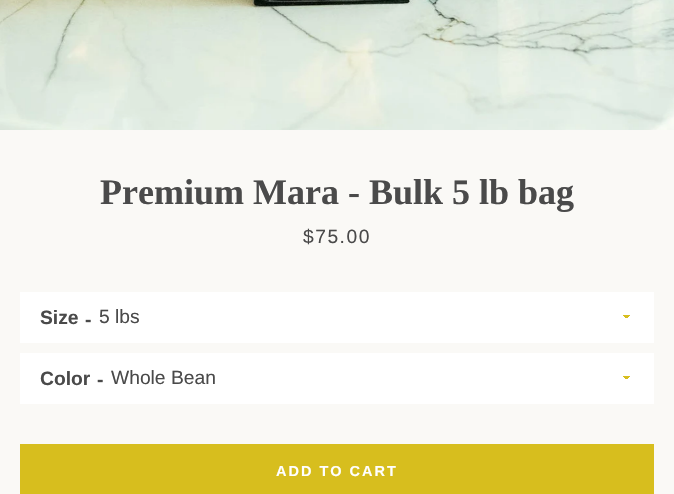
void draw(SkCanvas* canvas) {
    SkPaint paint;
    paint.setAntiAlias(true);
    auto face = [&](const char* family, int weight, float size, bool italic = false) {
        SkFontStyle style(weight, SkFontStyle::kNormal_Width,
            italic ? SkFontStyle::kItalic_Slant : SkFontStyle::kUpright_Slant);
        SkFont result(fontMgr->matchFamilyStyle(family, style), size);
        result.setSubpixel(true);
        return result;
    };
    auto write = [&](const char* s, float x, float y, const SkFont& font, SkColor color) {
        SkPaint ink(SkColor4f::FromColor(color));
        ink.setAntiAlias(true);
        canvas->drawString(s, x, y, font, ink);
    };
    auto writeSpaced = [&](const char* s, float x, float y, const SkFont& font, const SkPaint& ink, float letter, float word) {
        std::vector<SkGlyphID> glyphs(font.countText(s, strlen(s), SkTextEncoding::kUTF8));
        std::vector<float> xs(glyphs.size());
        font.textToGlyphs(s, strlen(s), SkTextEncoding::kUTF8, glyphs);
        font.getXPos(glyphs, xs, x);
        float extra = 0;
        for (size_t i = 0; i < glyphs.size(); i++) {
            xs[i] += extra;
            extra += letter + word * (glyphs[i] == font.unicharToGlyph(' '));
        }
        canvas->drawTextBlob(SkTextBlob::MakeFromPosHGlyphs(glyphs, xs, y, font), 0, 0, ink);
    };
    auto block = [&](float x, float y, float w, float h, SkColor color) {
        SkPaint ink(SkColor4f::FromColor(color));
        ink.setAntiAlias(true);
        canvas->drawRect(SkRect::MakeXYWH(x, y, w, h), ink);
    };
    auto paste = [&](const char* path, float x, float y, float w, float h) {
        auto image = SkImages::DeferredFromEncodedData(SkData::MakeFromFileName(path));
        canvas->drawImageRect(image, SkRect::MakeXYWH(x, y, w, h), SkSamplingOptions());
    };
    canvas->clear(SkColorSetRGB(250, 249, 246));
    paste("pic1.png", 0, 0, 674, 130);
    auto kFont1 = face("Liberation Serif", 700, 36);
    write("Premium Mara - Bulk 5 lb bag", 100, 204, kFont1, SkColorSetRGB(74, 74, 74));
    auto kFont2 = face("Liberation Sans", 400, 19.25f);
    paint.setColor(SkColorSetRGB(74, 74, 74));
    writeSpaced("$75.00", 303, 243, kFont2, paint, 1.5f, 0);
    block(20, 292, 634, 51, SK_ColorWHITE);
    auto kFont3 = face("Liberation Sans", 700, 19.25f);
    write("Size", 40, 324, kFont3, SkColorSetRGB(74, 74, 74));
    write("-", 85, 326, kFont3, SkColorSetRGB(74, 74, 74));
    {
        const SkColor colors[] = {SkColorSetRGB(215, 190, 30), SK_ColorWHITE};
        const float stops[] = {0.5f, 0.5f};
        const SkPoint ends[] = {{626, 315}, {630, 319}};
        paint.setShader(SkGradientShader::MakeLinear(ends, colors, stops, 2, SkTileMode::kClamp));
        paint.setAlpha(255);
    }
    canvas->drawRect(SkRect::MakeXYWH(626, 315, 4, 3), paint);
    {
        const SkColor colors[] = {SK_ColorWHITE, SkColorSetRGB(215, 190, 30)};
        const float stops[] = {0.5f, 0.5f};
        const SkPoint ends[] = {{622, 319}, {626, 315}};
        paint.setShader(SkGradientShader::MakeLinear(ends, colors, stops, 2, SkTileMode::kClamp));
        paint.setAlpha(255);
    }
    canvas->drawRect(SkRect::MakeXYWH(622, 315, 4, 4), paint);
    write("5 lbs", 99, 323, kFont2, SkColorSetRGB(74, 74, 74));
    block(20, 353, 634, 51, SK_ColorWHITE);
    write("Color", 40, 385, kFont3, SkColorSetRGB(74, 74, 74));
    write("-", 97, 386, kFont3, SkColorSetRGB(74, 74, 74));
    {
        const SkColor colors[] = {SkColorSetRGB(215, 190, 30), SK_ColorWHITE};
        const float stops[] = {0.5f, 0.5f};
        const SkPoint ends[] = {{626, 376}, {630, 380}};
        paint.setShader(SkGradientShader::MakeLinear(ends, colors, stops, 2, SkTileMode::kClamp));
        paint.setAlpha(255);
    }
    canvas->drawRect(SkRect::MakeXYWH(626, 376, 4, 3), paint);
    {
        const SkColor colors[] = {SK_ColorWHITE, SkColorSetRGB(215, 190, 30)};
        const float stops[] = {0.5f, 0.5f};
        const SkPoint ends[] = {{622, 380}, {626, 376}};
        paint.setShader(SkGradientShader::MakeLinear(ends, colors, stops, 2, SkTileMode::kClamp));
        paint.setAlpha(255);
    }
    canvas->drawRect(SkRect::MakeXYWH(622, 376, 4, 4), paint);
    write("Whole Bean", 111, 384, kFont2, SkColorSetRGB(74, 74, 74));
    block(20, 444, 634, 50, SkColorSetRGB(215, 190, 30));
    auto kFont4 = face("Liberation Sans", 700, 14.5f);
    paint.setShader(nullptr);
    paint.setColor(SK_ColorWHITE);
    writeSpaced("ADD TO CART", 276, 476, kFont4, paint, 2, 0);
}
